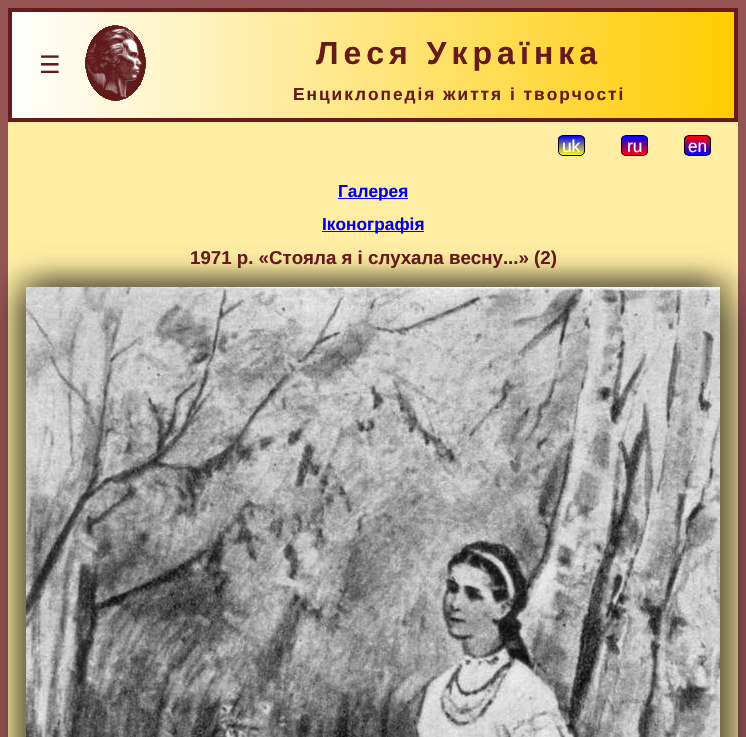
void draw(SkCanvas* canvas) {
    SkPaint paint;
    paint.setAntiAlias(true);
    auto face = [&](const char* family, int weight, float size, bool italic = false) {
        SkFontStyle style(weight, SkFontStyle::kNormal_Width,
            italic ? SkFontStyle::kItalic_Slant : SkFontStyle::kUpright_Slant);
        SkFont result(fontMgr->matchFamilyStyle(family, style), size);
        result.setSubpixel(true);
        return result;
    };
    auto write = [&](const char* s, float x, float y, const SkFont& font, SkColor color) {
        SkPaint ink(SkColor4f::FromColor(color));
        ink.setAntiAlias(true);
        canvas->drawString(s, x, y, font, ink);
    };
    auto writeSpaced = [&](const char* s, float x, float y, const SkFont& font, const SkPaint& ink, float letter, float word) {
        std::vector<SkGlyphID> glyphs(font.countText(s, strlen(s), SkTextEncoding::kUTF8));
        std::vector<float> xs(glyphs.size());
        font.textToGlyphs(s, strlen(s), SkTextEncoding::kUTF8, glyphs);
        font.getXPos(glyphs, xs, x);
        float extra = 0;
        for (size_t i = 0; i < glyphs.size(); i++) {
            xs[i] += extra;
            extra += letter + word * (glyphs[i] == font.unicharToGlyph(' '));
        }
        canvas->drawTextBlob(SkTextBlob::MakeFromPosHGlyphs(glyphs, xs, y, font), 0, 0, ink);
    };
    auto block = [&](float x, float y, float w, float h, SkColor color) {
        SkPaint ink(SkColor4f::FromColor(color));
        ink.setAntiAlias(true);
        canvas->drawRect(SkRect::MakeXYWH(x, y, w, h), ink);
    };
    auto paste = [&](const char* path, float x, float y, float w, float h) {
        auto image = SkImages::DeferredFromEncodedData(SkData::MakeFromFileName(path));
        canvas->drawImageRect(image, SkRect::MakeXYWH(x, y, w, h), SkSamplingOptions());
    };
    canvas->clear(SkColorSetRGB(148, 84, 84));
    {
        const SkColor colors[] = {SK_ColorWHITE, SkColorSetRGB(255, 204, 0)};
        const float stops[] = {0, 1};
        const SkPoint ends[] = {{12, 65}, {734, 65}};
        paint.setShader(SkGradientShader::MakeLinear(ends, colors, stops, 2, SkTileMode::kClamp));
        paint.setAlpha(255);
    }
    canvas->drawRect(SkRect::MakeXYWH(12, 12, 722, 106), paint);
    paint.setStyle(SkPaint::kStroke_Style);
    paint.setStrokeWidth(4);
    paint.setShader(nullptr);
    paint.setColor(SkColorSetRGB(102, 26, 26));
    canvas->drawRect(SkRect::MakeXYWH(10, 10, 726, 110), paint);
    auto kFont1 = face("DejaVu Sans", 400, 24);
    write("☰", 39, 73, kFont1, SkColorSetRGB(102, 26, 26));
    paste("pic1.png", 85, 25, 61, 76);
    auto kFont2 = face("Liberation Sans", 700, 32);
    paint.setStyle(SkPaint::kFill_Style);
    writeSpaced("Леся Українка", 316, 64, kFont2, paint, 5, 0);
    auto kFont3 = face("Liberation Sans", 700, 17.3f);
    writeSpaced("Енциклопедія життя і творчості", 293, 100, kFont3, paint, 2, 0);
    block(8, 122, 730, 615, SkColorSetRGB(255, 237, 164));
    canvas->save();
    canvas->clipPath(SkPathBuilder().moveTo(563, 135).lineTo(580, 135).cubicTo(583, 135, 585, 137, 585, 140).lineTo(585, 151).cubicTo(585, 154, 583, 156, 580, 156).lineTo(563, 156).cubicTo(560, 156, 558, 154, 558, 151).lineTo(558, 140).cubicTo(558, 137, 560, 135, 563, 135).close().detach(), true);
    {
        const SkColor colors[] = {SkColorSetRGB(0, 0, 255), SkColorSetRGB(255, 255, 0)};
        const float stops[] = {0, 1};
        const SkPoint ends[] = {{572, 136}, {572, 155}};
        paint.setShader(SkGradientShader::MakeLinear(ends, colors, stops, 2, SkTileMode::kClamp));
        paint.setAlpha(255);
    }
    canvas->drawRect(SkRect::MakeXYWH(558, 136, 27, 19), paint);
    canvas->restore();
    paint.setStyle(SkPaint::kStroke_Style);
    paint.setStrokeWidth(1);
    paint.setShader(nullptr);
    paint.setColor(SK_ColorBLACK);
    canvas->drawRoundRect(SkRect::MakeXYWH(558.5f, 135.5f, 26, 20), 4.5f, 4.5f, paint);
    auto kFont4 = face("Liberation Sans", 400, 17.3f);
    write("uk", 562, 152, kFont4, SK_ColorWHITE);
    canvas->save();
    canvas->clipPath(SkPathBuilder().moveTo(626, 135).lineTo(643, 135).cubicTo(646, 135, 648, 137, 648, 140).lineTo(648, 151).cubicTo(648, 154, 646, 156, 643, 156).lineTo(626, 156).cubicTo(623, 156, 621, 154, 621, 151).lineTo(621, 140).cubicTo(621, 137, 623, 135, 626, 135).close().detach(), true);
    paint.setStyle(SkPaint::kFill_Style);
    {
        const SkColor colors[] = {SkColorSetRGB(0, 0, 255), SkColorSetRGB(255, 0, 0)};
        const float stops[] = {0, 1};
        const SkPoint ends[] = {{635, 136}, {635, 155}};
        paint.setShader(SkGradientShader::MakeLinear(ends, colors, stops, 2, SkTileMode::kClamp));
        paint.setAlpha(255);
    }
    canvas->drawRect(SkRect::MakeXYWH(621, 136, 27, 19), paint);
    canvas->restore();
    paint.setStyle(SkPaint::kStroke_Style);
    paint.setShader(nullptr);
    paint.setColor(SK_ColorBLACK);
    canvas->drawRoundRect(SkRect::MakeXYWH(621.5f, 135.5f, 26, 20), 4.5f, 4.5f, paint);
    write("ru", 627, 152, kFont4, SK_ColorWHITE);
    canvas->save();
    canvas->clipPath(SkPathBuilder().moveTo(689, 135).lineTo(706, 135).cubicTo(709, 135, 711, 137, 711, 140).lineTo(711, 151).cubicTo(711, 154, 709, 156, 706, 156).lineTo(689, 156).cubicTo(686, 156, 684, 154, 684, 151).lineTo(684, 140).cubicTo(684, 137, 686, 135, 689, 135).close().detach(), true);
    paint.setStyle(SkPaint::kFill_Style);
    {
        const SkColor colors[] = {SkColorSetRGB(255, 0, 0), SkColorSetRGB(0, 0, 255)};
        const float stops[] = {0, 1};
        const SkPoint ends[] = {{698, 136}, {698, 155}};
        paint.setShader(SkGradientShader::MakeLinear(ends, colors, stops, 2, SkTileMode::kClamp));
        paint.setAlpha(255);
    }
    canvas->drawRect(SkRect::MakeXYWH(684, 136, 27, 19), paint);
    canvas->restore();
    paint.setStyle(SkPaint::kStroke_Style);
    paint.setShader(nullptr);
    paint.setColor(SK_ColorBLACK);
    canvas->drawRoundRect(SkRect::MakeXYWH(684.5f, 135.5f, 26, 20), 4.5f, 4.5f, paint);
    write("en", 688, 152, kFont4, SK_ColorWHITE);
    block(338, 198, 70, 1, SkColorSetRGB(0, 0, 238));
    write("Галерея", 338, 197, kFont3, SkColorSetRGB(0, 0, 238));
    block(322, 231, 102, 1, SkColorSetRGB(0, 0, 238));
    write("Іконографія", 322, 230, kFont3, SkColorSetRGB(0, 0, 238));
    paint.setStyle(SkPaint::kFill_Style);
    paint.setColor(SkColorSetARGB(102, 0, 0, 0));
    paint.setMaskFilter(SkMaskFilter::MakeBlur(kNormal_SkBlurStyle, 16));
    canvas->drawRect(SkRect::MakeXYWH(42, 303, 694, 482), paint);
    paint.setMaskFilter(nullptr);
    paint.setColor(SkColorSetARGB(77, 0, 0, 0));
    paint.setMaskFilter(SkMaskFilter::MakeBlur(kNormal_SkBlurStyle, 10));
    canvas->drawRect(SkRect::MakeXYWH(38, 275, 694, 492), paint);
    paint.setMaskFilter(nullptr);
    paint.setMaskFilter(SkMaskFilter::MakeBlur(kNormal_SkBlurStyle, 10));
    canvas->drawRect(SkRect::MakeXYWH(14, 299, 694, 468), paint);
    paint.setMaskFilter(nullptr);
    paint.setMaskFilter(SkMaskFilter::MakeBlur(kNormal_SkBlurStyle, 10));
    canvas->drawRect(SkRect::MakeXYWH(14, 275, 694, 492), paint);
    paint.setMaskFilter(nullptr);
    paste("pic2.png", 26, 287, 694, 450);
    auto kFont5 = face("Liberation Sans", 700, 18.7f);
    write("1971 р. «Стояла я і слухала весну...» (2)", 190, 264, kFont5, SkColorSetRGB(102, 26, 26));
}
